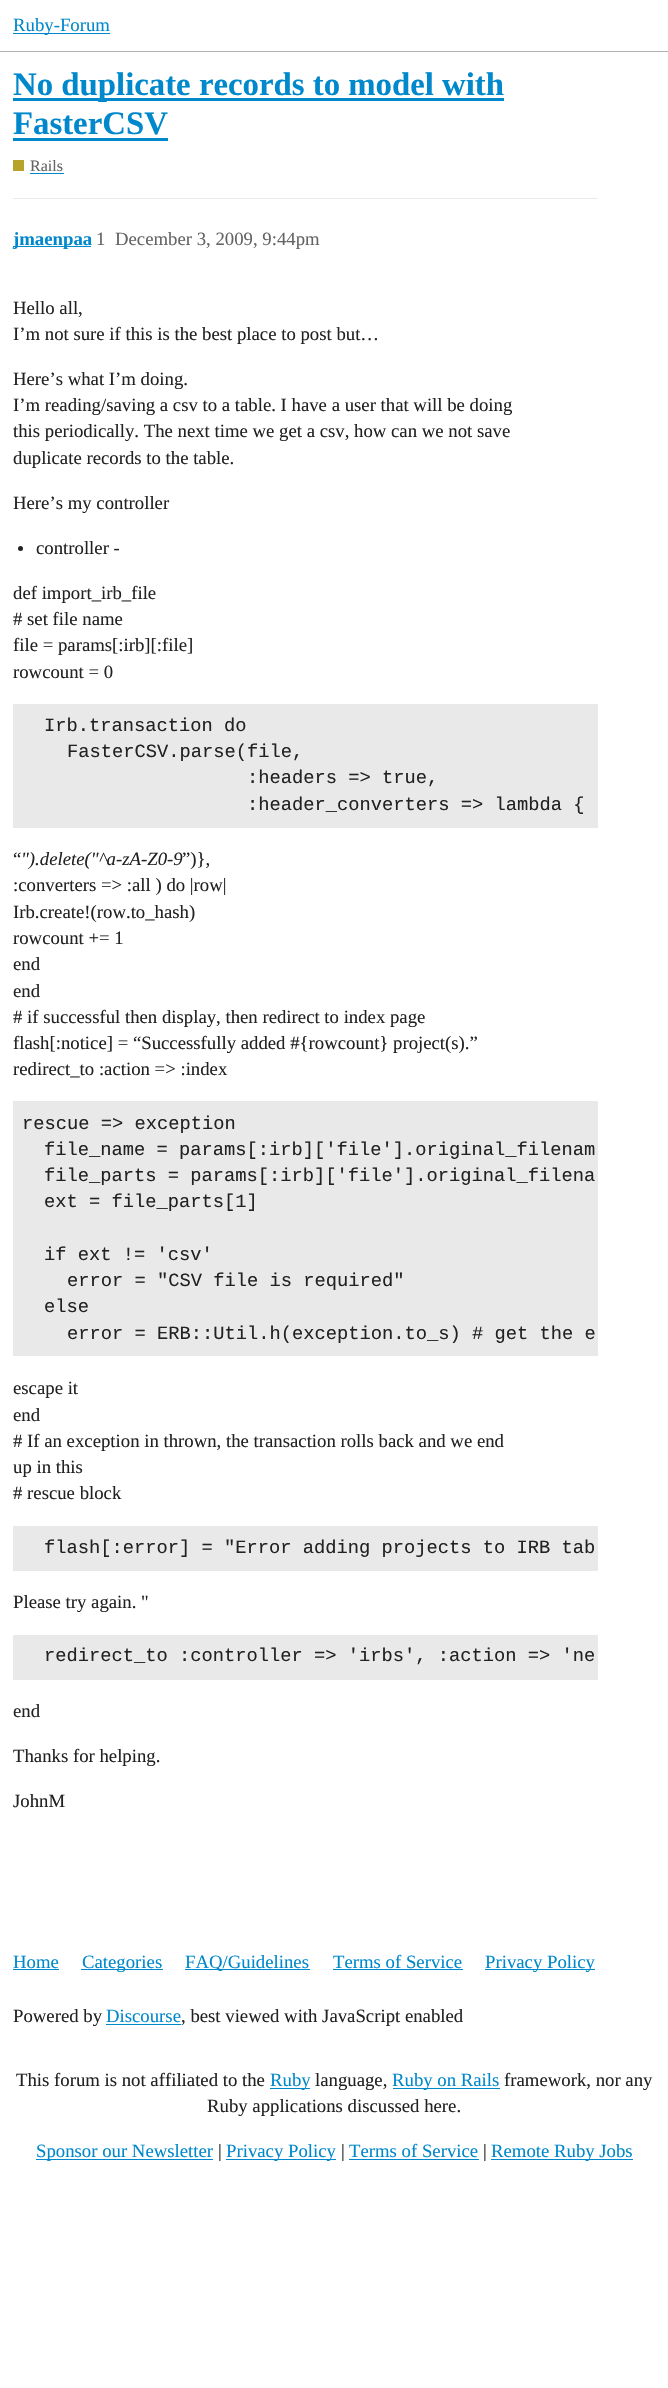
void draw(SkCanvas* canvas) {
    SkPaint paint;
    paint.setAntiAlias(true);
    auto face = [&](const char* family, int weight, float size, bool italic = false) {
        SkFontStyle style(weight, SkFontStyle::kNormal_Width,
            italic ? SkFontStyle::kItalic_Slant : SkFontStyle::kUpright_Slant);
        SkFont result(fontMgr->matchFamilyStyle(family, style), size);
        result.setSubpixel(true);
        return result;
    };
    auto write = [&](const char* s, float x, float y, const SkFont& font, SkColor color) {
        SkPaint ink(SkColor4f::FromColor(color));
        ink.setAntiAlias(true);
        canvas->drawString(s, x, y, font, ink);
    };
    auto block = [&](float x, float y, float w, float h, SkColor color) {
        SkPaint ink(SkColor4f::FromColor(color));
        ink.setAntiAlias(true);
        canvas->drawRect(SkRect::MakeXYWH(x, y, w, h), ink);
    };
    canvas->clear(SK_ColorWHITE);
    block(0, 51, 668, 1, SkColorSetRGB(175, 175, 175));
    block(13, 33, 97, 1, SkColorSetRGB(0, 136, 204));
    auto kFont1 = face("Liberation Serif", 400, 18.75f);
    write("Ruby-Forum", 13, 31, kFont1, SkColorSetRGB(0, 136, 204));
    block(13, 98, 491, 3, SkColorSetRGB(0, 136, 204));
    auto kFont2 = face("Liberation Serif", 700, 32.8f);
    write("No duplicate records to model with", 13, 95, kFont2, SkColorSetRGB(0, 136, 204));
    write("FasterCSV", 13, 134, kFont2, SkColorSetRGB(0, 136, 204));
    block(13, 138, 155, 3, SkColorSetRGB(0, 136, 204));
    block(13, 160, 11, 11, SkColorSetRGB(184, 163, 42));
    auto kFont3 = face("Liberation Serif", 400, 16);
    write("Rails", 30, 171, kFont3, SkColorSetRGB(100, 100, 100));
    block(30, 173, 34, 1, SkColorSetRGB(0, 136, 204));
    block(13, 198, 585, 1, SkColorSetRGB(233, 233, 233));
    block(13, 246, 78, 1, SkColorSetRGB(0, 136, 204));
    auto kFont4 = face("Liberation Serif", 700, 18.75f);
    write("jmaenpaa", 13, 245, kFont4, SkColorSetRGB(0, 136, 204));
    write("1", 96, 245, kFont1, SkColorSetRGB(100, 100, 100));
    write("December 3, 2009, 9:44pm", 115, 245, kFont1, SkColorSetRGB(100, 100, 100));
    write("Hello all,", 13, 314, kFont1, SkColorSetRGB(34, 34, 34));
    write("I’m not sure if this is the best place to post but…", 13, 340, kFont1, SkColorSetRGB(34, 34, 34));
    write("Here’s what I’m doing.", 13, 385, kFont1, SkColorSetRGB(34, 34, 34));
    write("I’m reading/saving a csv to a table. I have a user that will be doing", 13, 411, kFont1, SkColorSetRGB(34, 34, 34));
    write("this periodically. The next time we get a csv, how can we not save", 13, 437, kFont1, SkColorSetRGB(34, 34, 34));
    write("duplicate records to the table.", 13, 464, kFont1, SkColorSetRGB(34, 34, 34));
    write("Here’s my controller", 13, 509, kFont1, SkColorSetRGB(34, 34, 34));
    paint.setColor(SkColorSetRGB(34, 34, 34));
    canvas->drawCircle(20.5f, 548.5f, 2.5f, paint);
    write("controller -", 36, 554, kFont1, SkColorSetRGB(34, 34, 34));
    write("def import_irb_file", 13, 599, kFont1, SkColorSetRGB(34, 34, 34));
    canvas->save();
    canvas->clipRect(SkRect::MakeXYWH(13, 276, 585, 1558));
    write("# set file name", 13, 625, kFont1, SkColorSetRGB(34, 34, 34));
    canvas->restore();
    write("file = params[:irb][:file]", 13, 651, kFont1, SkColorSetRGB(34, 34, 34));
    write("rowcount = 0", 13, 678, kFont1, SkColorSetRGB(34, 34, 34));
    block(13, 704, 585, 124, SkColorSetRGB(233, 233, 233));
    auto kFont5 = face("Liberation Mono", 400, 18.75f);
    write("Irb.transaction do", 44, 731, kFont5, SkColorSetRGB(34, 34, 34));
    write("FasterCSV.parse(file,", 67, 757, kFont5, SkColorSetRGB(34, 34, 34));
    write(":headers => true,", 247, 783, kFont5, SkColorSetRGB(34, 34, 34));
    write(":header_converters => lambda {", 247, 810, kFont5, SkColorSetRGB(34, 34, 34));
    write("“", 13, 865, kFont1, SkColorSetRGB(34, 34, 34));
    auto kFont6 = face("Liberation Serif", 400, 18.75f, true);
    write("\").delete(\"^a-zA-Z0-9", 21, 865, kFont6, SkColorSetRGB(34, 34, 34));
    write("”)},", 182, 865, kFont1, SkColorSetRGB(34, 34, 34));
    write(":converters => :all ) do |row|", 13, 891, kFont1, SkColorSetRGB(34, 34, 34));
    write("Irb.create!(row.to_hash)", 13, 918, kFont1, SkColorSetRGB(34, 34, 34));
    write("rowcount += 1", 13, 944, kFont1, SkColorSetRGB(34, 34, 34));
    write("end", 13, 970, kFont1, SkColorSetRGB(34, 34, 34));
    write("end", 13, 997, kFont1, SkColorSetRGB(34, 34, 34));
    canvas->save();
    canvas->clipRect(SkRect::MakeXYWH(13, 276, 585, 1558));
    write("# if successful then display, then redirect to index page", 13, 1023, kFont1, SkColorSetRGB(34, 34, 34));
    canvas->restore();
    write("flash[:notice] = “Successfully added #{rowcount} project(s).”", 13, 1049, kFont1, SkColorSetRGB(34, 34, 34));
    write("redirect_to :action => :index", 13, 1075, kFont1, SkColorSetRGB(34, 34, 34));
    block(13, 1101, 585, 255, SkColorSetRGB(233, 233, 233));
    write("rescue => exception", 22, 1129, kFont5, SkColorSetRGB(34, 34, 34));
    write("file_name = params[:irb]['file'].original_filenam", 44, 1155, kFont5, SkColorSetRGB(34, 34, 34));
    write("file_parts = params[:irb]['file'].original_filena", 44, 1181, kFont5, SkColorSetRGB(34, 34, 34));
    write("ext = file_parts[1]", 44, 1207, kFont5, SkColorSetRGB(34, 34, 34));
    write("if ext != 'csv'", 44, 1260, kFont5, SkColorSetRGB(34, 34, 34));
    write("error = \"CSV file is required\"", 67, 1286, kFont5, SkColorSetRGB(34, 34, 34));
    write("else", 44, 1312, kFont5, SkColorSetRGB(34, 34, 34));
    write("error = ERB::Util.h(exception.to_s) # get the e", 67, 1339, kFont5, SkColorSetRGB(34, 34, 34));
    write("escape it", 13, 1394, kFont1, SkColorSetRGB(34, 34, 34));
    write("end", 13, 1421, kFont1, SkColorSetRGB(34, 34, 34));
    canvas->save();
    canvas->clipRect(SkRect::MakeXYWH(13, 276, 585, 1558));
    write("# If an exception in thrown, the transaction rolls back and we end", 13, 1447, kFont1, SkColorSetRGB(34, 34, 34));
    canvas->restore();
    write("up in this", 13, 1473, kFont1, SkColorSetRGB(34, 34, 34));
    canvas->save();
    canvas->clipRect(SkRect::MakeXYWH(13, 276, 585, 1558));
    write("# rescue block", 13, 1499, kFont1, SkColorSetRGB(34, 34, 34));
    canvas->restore();
    block(13, 1526, 585, 45, SkColorSetRGB(233, 233, 233));
    write("flash[:error] = \"Error adding projects to IRB tab", 44, 1553, kFont5, SkColorSetRGB(34, 34, 34));
    write("Please try again. \"", 13, 1608, kFont1, SkColorSetRGB(34, 34, 34));
    block(13, 1635, 585, 45, SkColorSetRGB(233, 233, 233));
    write("redirect_to :controller => 'irbs', :action => 'ne", 44, 1661, kFont5, SkColorSetRGB(34, 34, 34));
    write("end", 13, 1717, kFont1, SkColorSetRGB(34, 34, 34));
    canvas->save();
    canvas->clipRect(SkRect::MakeXYWH(13, 276, 585, 1558));
    write("Thanks for helping.", 13, 1762, kFont1, SkColorSetRGB(34, 34, 34));
    canvas->restore();
    write("JohnM", 13, 1807, kFont1, SkColorSetRGB(34, 34, 34));
    write("Home", 13, 1968, kFont1, SkColorSetRGB(0, 136, 204));
    block(13, 1969, 46, 1, SkColorSetRGB(0, 136, 204));
    block(81, 1969, 82, 1, SkColorSetRGB(0, 136, 204));
    write("Categories", 82, 1968, kFont1, SkColorSetRGB(0, 136, 204));
    block(185, 1969, 125, 1, SkColorSetRGB(0, 136, 204));
    write("FAQ/Guidelines", 185, 1968, kFont1, SkColorSetRGB(0, 136, 204));
    write("Terms of Service", 333, 1968, kFont1, SkColorSetRGB(0, 136, 204));
    block(333, 1969, 130, 1, SkColorSetRGB(0, 136, 204));
    block(485, 1969, 110, 1, SkColorSetRGB(0, 136, 204));
    write("Privacy Policy", 485, 1968, kFont1, SkColorSetRGB(0, 136, 204));
    write("Powered by", 13, 2022, kFont1, SkColorSetRGB(34, 34, 34));
    write("Discourse", 106, 2022, kFont1, SkColorSetRGB(0, 136, 204));
    block(106, 2024, 75, 1, SkColorSetRGB(0, 136, 204));
    write(", best viewed with JavaScript enabled", 181, 2022, kFont1, SkColorSetRGB(34, 34, 34));
    write("This forum is not affiliated to the", 16, 2086, kFont1, SkColorSetRGB(34, 34, 34));
    block(270, 2088, 40, 1, SkColorSetRGB(0, 136, 204));
    write("Ruby", 270, 2086, kFont1, SkColorSetRGB(0, 136, 204));
    write("language,", 315, 2086, kFont1, SkColorSetRGB(34, 34, 34));
    block(393, 2088, 107, 1, SkColorSetRGB(0, 136, 204));
    write("Ruby on Rails", 392, 2086, kFont1, SkColorSetRGB(0, 136, 204));
    write("framework, nor any", 504, 2086, kFont1, SkColorSetRGB(34, 34, 34));
    write("Ruby applications discussed here.", 207, 2112, kFont1, SkColorSetRGB(34, 34, 34));
    block(36, 2159, 177, 1, SkColorSetRGB(0, 136, 204));
    write("Sponsor our Newsletter", 36, 2157, kFont1, SkColorSetRGB(0, 136, 204));
    write("|", 218, 2157, kFont1, SkColorSetRGB(34, 34, 34));
    block(226, 2159, 110, 1, SkColorSetRGB(0, 136, 204));
    write("Privacy Policy", 226, 2157, kFont1, SkColorSetRGB(0, 136, 204));
    write("|", 341, 2157, kFont1, SkColorSetRGB(34, 34, 34));
    write("Terms of Service", 349, 2157, kFont1, SkColorSetRGB(0, 136, 204));
    block(349, 2159, 130, 1, SkColorSetRGB(0, 136, 204));
    write("|", 483, 2157, kFont1, SkColorSetRGB(34, 34, 34));
    block(491, 2159, 142, 1, SkColorSetRGB(0, 136, 204));
    write("Remote Ruby Jobs", 491, 2157, kFont1, SkColorSetRGB(0, 136, 204));
}
